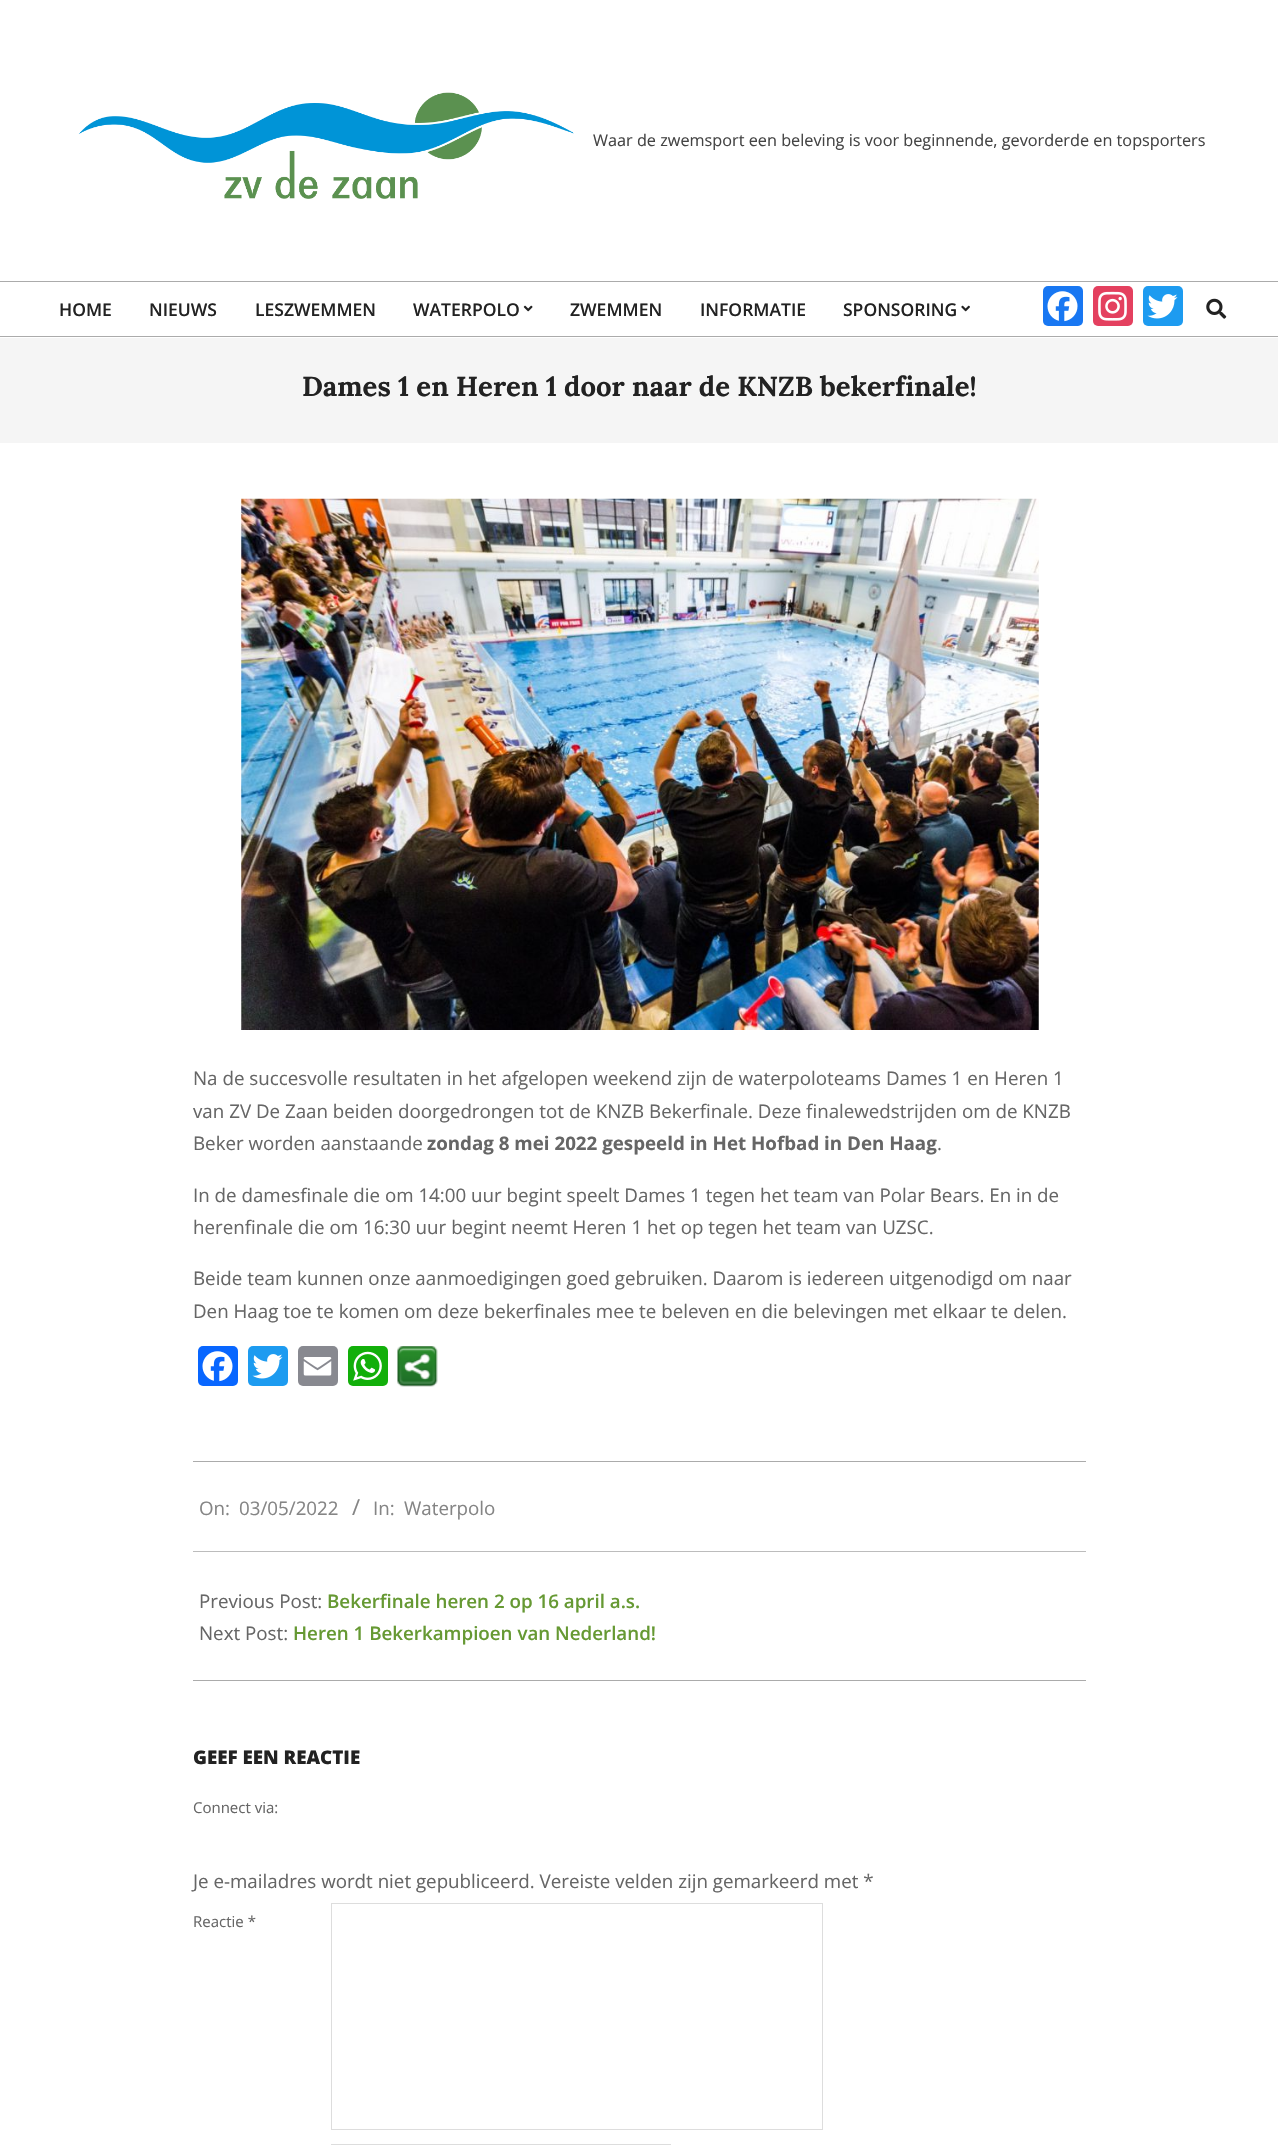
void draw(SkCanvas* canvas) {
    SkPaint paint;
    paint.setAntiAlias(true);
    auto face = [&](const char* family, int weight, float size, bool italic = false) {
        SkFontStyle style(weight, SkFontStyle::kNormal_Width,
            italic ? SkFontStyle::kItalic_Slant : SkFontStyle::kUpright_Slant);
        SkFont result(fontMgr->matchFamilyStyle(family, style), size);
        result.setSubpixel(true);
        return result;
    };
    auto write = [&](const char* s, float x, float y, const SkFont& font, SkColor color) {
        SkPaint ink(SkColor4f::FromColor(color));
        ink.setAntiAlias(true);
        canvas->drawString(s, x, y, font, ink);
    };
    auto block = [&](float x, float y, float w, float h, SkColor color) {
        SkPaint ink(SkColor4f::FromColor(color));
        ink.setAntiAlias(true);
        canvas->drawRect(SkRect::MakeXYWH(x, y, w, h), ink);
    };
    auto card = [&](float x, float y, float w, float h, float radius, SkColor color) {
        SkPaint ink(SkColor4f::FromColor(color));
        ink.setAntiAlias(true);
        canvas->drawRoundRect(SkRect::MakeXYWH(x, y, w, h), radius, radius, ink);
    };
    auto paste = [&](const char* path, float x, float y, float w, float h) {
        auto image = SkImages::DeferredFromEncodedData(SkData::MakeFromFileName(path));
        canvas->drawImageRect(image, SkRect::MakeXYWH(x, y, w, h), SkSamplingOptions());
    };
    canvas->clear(SK_ColorWHITE);
    block(0, 281, 1278, 1, SkColorSetRGB(171, 171, 171));
    paste("pic1.png", 78, 92, 496, 107);
    auto kFont1 = face("Open Sans", 400, 16.25f);
    write("Waar de zwemsport een beleving is voor beginnende, gevorderde en topsporters", 593, 146, kFont1, SkColorSetRGB(68, 68, 68));
    block(0, 336, 1278, 1, SkColorSetRGB(171, 171, 171));
    auto kFont2 = face("Open Sans", 600, 17.5f);
    write("HOME", 59, 316, kFont2, SkColorSetRGB(34, 34, 34));
    write("NIEUWS", 149, 316, kFont2, SkColorSetRGB(34, 34, 34));
    write("LESZWEMMEN", 255, 316, kFont2, SkColorSetRGB(34, 34, 34));
    write("WATERPOLO", 413, 316, kFont2, SkColorSetRGB(34, 34, 34));
    paste("pic2.png", 523, 305, 10, 7);
    write("ZWEMMEN", 570, 316, kFont2, SkColorSetRGB(34, 34, 34));
    write("INFORMATIE", 700, 316, kFont2, SkColorSetRGB(34, 34, 34));
    write("SPONSORING", 843, 316, kFont2, SkColorSetRGB(34, 34, 34));
    paste("pic3.png", 961, 305, 9, 7);
    card(1043, 286, 40, 40, 5, SkColorSetRGB(24, 119, 242));
    paste("pic4.png", 1047, 291, 31, 31);
    card(1093, 286, 40, 40, 5, SkColorSetRGB(228, 64, 95));
    paste("pic5.png", 1098, 291, 29, 30);
    card(1143, 286, 40, 40, 5, SkColorSetRGB(29, 155, 240));
    paste("pic6.png", 1147, 294, 31, 25);
    paste("pic7.png", 1206, 298, 21, 21);
    block(0, 338, 1278, 105, SkColorSetRGB(245, 245, 245));
    auto kFont3 = face("Lora", 700, 27.5f);
    write("Dames 1 en Heren 1 door naar de KNZB bekerfinale!", 302, 396, kFont3, SkColorSetRGB(34, 34, 34));
    paste("pic8.png", 241, 498, 798, 532);
    block(193, 1461, 893, 1, SkColorSetRGB(171, 171, 171));
    auto kFont4 = face("Open Sans", 400, 18.75f);
    write("Na de succesvolle resultaten in het afgelopen weekend zijn de waterpoloteams Dames 1 en Heren 1", 193, 1085, kFont4, SkColorSetRGB(102, 102, 102));
    write("van ZV De Zaan beiden doorgedrongen tot de KNZB Bekerfinale. Deze finalewedstrijden om de KNZB", 193, 1118, kFont4, SkColorSetRGB(102, 102, 102));
    write("Beker worden aanstaande", 193, 1150, kFont4, SkColorSetRGB(102, 102, 102));
    auto kFont5 = face("Open Sans", 700, 18.75f);
    write("zondag 8 mei 2022 gespeeld in Het Hofbad in Den Haag", 427, 1150, kFont5, SkColorSetRGB(102, 102, 102));
    write(".", 937, 1150, kFont4, SkColorSetRGB(102, 102, 102));
    write("In de damesfinale die om 14:00 uur begint speelt Dames 1 tegen het team van Polar Bears. En in de", 193, 1202, kFont4, SkColorSetRGB(102, 102, 102));
    write("herenfinale die om 16:30 uur begint neemt Heren 1 het op tegen het team van UZSC.", 193, 1234, kFont4, SkColorSetRGB(102, 102, 102));
    write("Beide team kunnen onze aanmoedigingen goed gebruiken. Daarom is iedereen uitgenodigd om naar", 193, 1285, kFont4, SkColorSetRGB(102, 102, 102));
    write("Den Haag toe te komen om deze bekerfinales mee te beleven en die belevingen met elkaar te delen.", 193, 1318, kFont4, SkColorSetRGB(102, 102, 102));
    card(198, 1346, 40, 40, 5, SkColorSetRGB(8, 102, 255));
    paste("pic9.png", 202, 1351, 31, 31);
    card(248, 1346, 40, 40, 5, SkColorSetRGB(29, 155, 240));
    paste("pic6.png", 252, 1354, 31, 25);
    card(298, 1346, 40, 40, 5, SkColorSetRGB(136, 137, 144));
    paste("pic10.png", 303, 1357, 29, 19);
    card(348, 1346, 40, 40, 5, SkColorSetRGB(18, 175, 10));
    paste("pic11.png", 353, 1351, 29, 30);
    paste("pic12.png", 397, 1346, 41, 41);
    block(193, 1551, 893, 1, SkColorSetRGB(188, 188, 188));
    write("On:", 199, 1515, kFont4, SkColorSetRGB(133, 133, 133));
    write("03/05/2022", 239, 1515, kFont4, SkColorSetRGB(133, 133, 133));
    auto kFont6 = face("Open Sans", 400, 22);
    write("/", 352, 1515, kFont6, SkColorSetRGB(133, 133, 133));
    write("In:", 373, 1515, kFont4, SkColorSetRGB(133, 133, 133));
    write("Waterpolo", 404, 1515, kFont4, SkColorSetRGB(133, 133, 133));
    block(193, 1680, 893, 1, SkColorSetRGB(171, 171, 171));
    write("Previous Post:", 199, 1608, kFont4, SkColorSetRGB(102, 102, 102));
    auto kFont7 = face("Open Sans", 600, 18.75f);
    write("Bekerfinale heren 2 op 16 april a.s.", 327, 1608, kFont7, SkColorSetRGB(102, 153, 51));
    write("Next Post:", 199, 1640, kFont4, SkColorSetRGB(102, 102, 102));
    write("Heren 1 Bekerkampioen van Nederland!", 293, 1640, kFont7, SkColorSetRGB(102, 153, 51));
    auto kFont8 = face("Open Sans", 800, 18.75f);
    write("GEEF EEN REACTIE", 193, 1764, kFont8, SkColorSetRGB(34, 34, 34));
    auto kFont9 = face("Open Sans", 400, 15);
    write("Connect via:", 193, 1813, kFont9, SkColorSetRGB(102, 102, 102));
    write("Je e-mailadres wordt niet gepubliceerd. Vereiste velden zijn gemarkeerd met *", 193, 1888, kFont4, SkColorSetRGB(102, 102, 102));
    write("Reactie *", 193, 1927, kFont9, SkColorSetRGB(102, 102, 102));
    paint.setStyle(SkPaint::kStroke_Style);
    paint.setStrokeWidth(1);
    paint.setColor(SkColorSetRGB(221, 221, 221));
    canvas->drawRect(SkRect::MakeXYWH(331.5f, 1903.5f, 491, 226), paint);
    canvas->drawRect(SkRect::MakeXYWH(331.5f, 2144.5f, 339, 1), paint);
}
